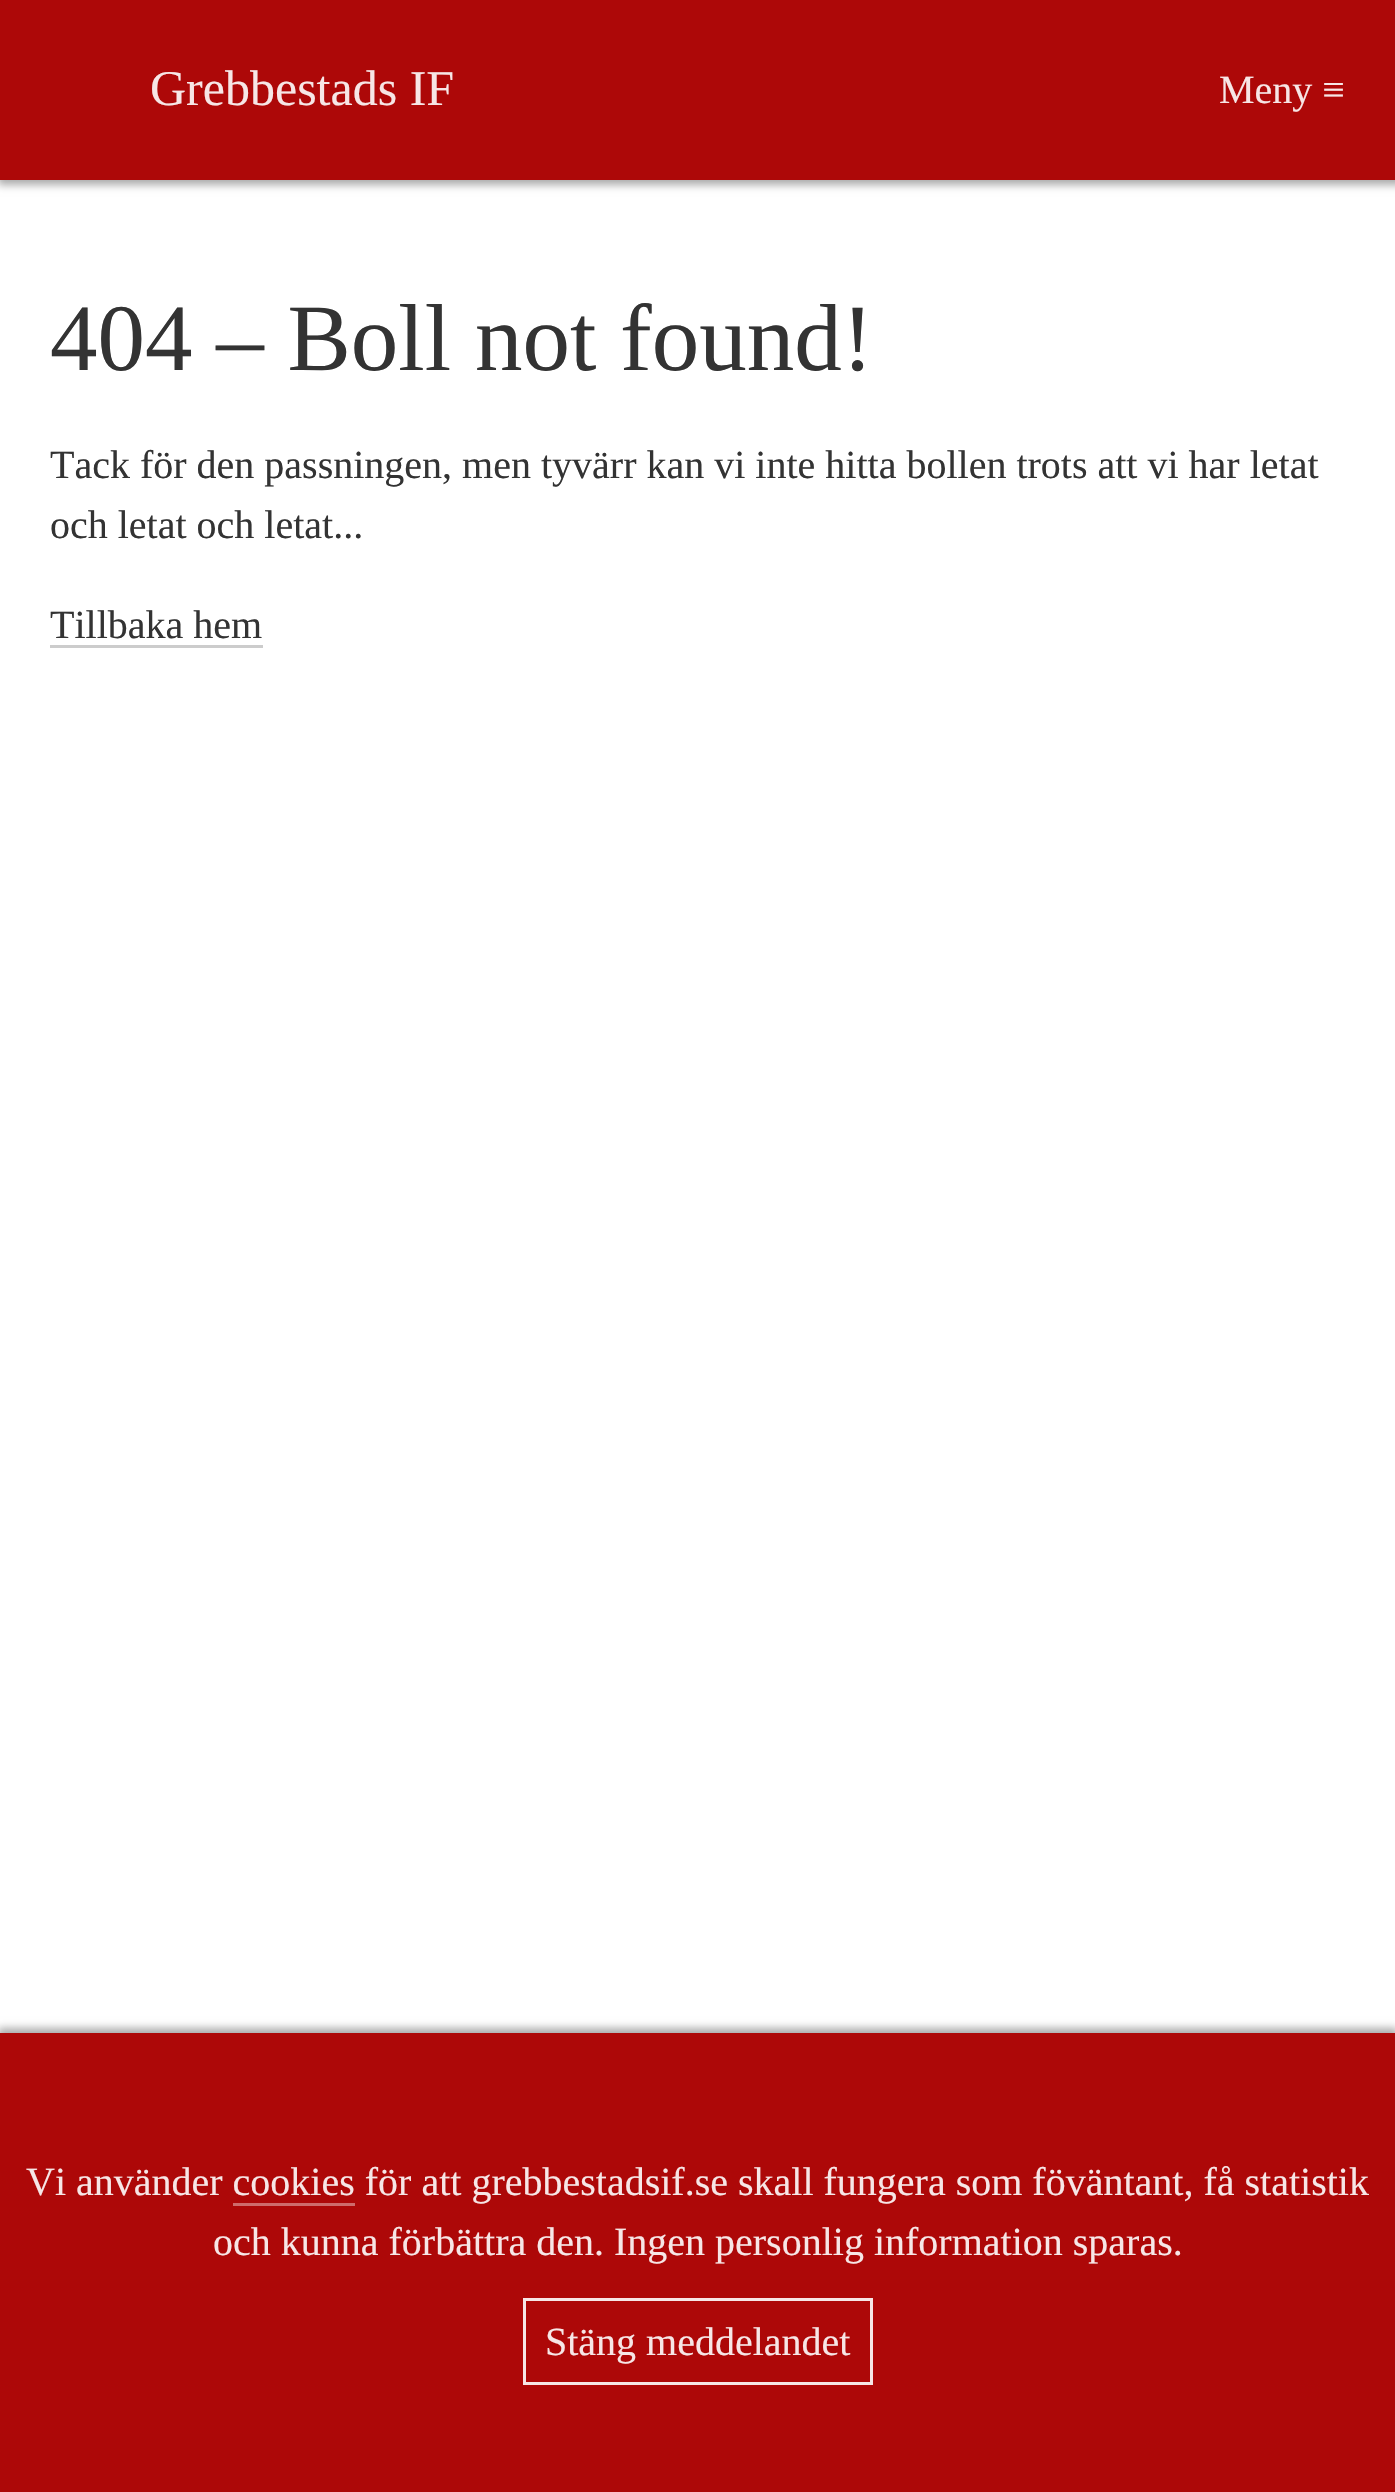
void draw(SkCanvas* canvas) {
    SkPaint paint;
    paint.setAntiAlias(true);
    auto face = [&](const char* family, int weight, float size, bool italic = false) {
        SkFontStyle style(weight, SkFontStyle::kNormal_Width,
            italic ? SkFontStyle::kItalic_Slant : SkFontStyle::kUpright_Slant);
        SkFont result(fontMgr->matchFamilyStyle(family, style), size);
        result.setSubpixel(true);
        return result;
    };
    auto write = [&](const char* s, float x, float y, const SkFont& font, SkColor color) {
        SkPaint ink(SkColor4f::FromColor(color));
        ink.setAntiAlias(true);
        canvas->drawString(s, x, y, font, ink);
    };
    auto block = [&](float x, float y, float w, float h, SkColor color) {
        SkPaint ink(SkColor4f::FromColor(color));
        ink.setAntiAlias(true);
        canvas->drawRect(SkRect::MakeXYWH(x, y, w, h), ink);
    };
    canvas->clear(SK_ColorWHITE);
    paint.setColor(SkColorSetARGB(84, 0, 0, 0));
    paint.setMaskFilter(SkMaskFilter::MakeBlur(kNormal_SkBlurStyle, 4));
    canvas->drawRect(SkRect::MakeXYWH(-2, 0, 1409, 185), paint);
    paint.setMaskFilter(nullptr);
    block(0, 0, 1395, 180, SkColorSetRGB(173, 8, 8));
    auto kFont1 = face("Liberation Serif", 400, 50);
    write("Grebbestads IF", 150, 105, kFont1, SkColorSetRGB(247, 230, 230));
    auto kFont2 = face("Liberation Serif", 400, 40);
    write("Meny ≡", 1219, 103, kFont2, SkColorSetRGB(247, 230, 230));
    paint.setMaskFilter(SkMaskFilter::MakeBlur(kNormal_SkBlurStyle, 4));
    canvas->drawRect(SkRect::MakeXYWH(-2, 2028, 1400, 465), paint);
    paint.setMaskFilter(nullptr);
    block(0, 2033, 1395, 459, SkColorSetRGB(173, 8, 8));
    write("Vi använder cookies för att grebbestadsif.se skall fungera som föväntant, få statistik", 26, 2195, kFont2, SkColorSetRGB(247, 230, 230));
    block(233, 2203, 122, 3, SkColorSetRGB(206, 107, 107));
    write("och kunna förbättra den. Ingen personlig information sparas.", 213, 2255, kFont2, SkColorSetRGB(247, 230, 230));
    paint.setStyle(SkPaint::kStroke_Style);
    paint.setStrokeWidth(3);
    paint.setColor(SkColorSetRGB(247, 230, 230));
    canvas->drawRect(SkRect::MakeXYWH(524.5f, 2299.5f, 347, 84), paint);
    write("Stäng meddelandet", 545, 2355, kFont2, SkColorSetRGB(247, 230, 230));
    auto kFont3 = face("Liberation Serif", 400, 95);
    write("404 – Boll not found!", 50, 370, kFont3, SkColorSetRGB(51, 51, 51));
    write("Tack för den passningen, men tyvärr kan vi inte hitta bollen trots att vi har letat", 50, 478, kFont2, SkColorSetRGB(51, 51, 51));
    write("och letat och letat...", 50, 538, kFont2, SkColorSetRGB(51, 51, 51));
    write("Tillbaka hem", 50, 638, kFont2, SkColorSetRGB(51, 51, 51));
    block(50, 645, 213, 3, SkColorSetRGB(204, 204, 204));
}
